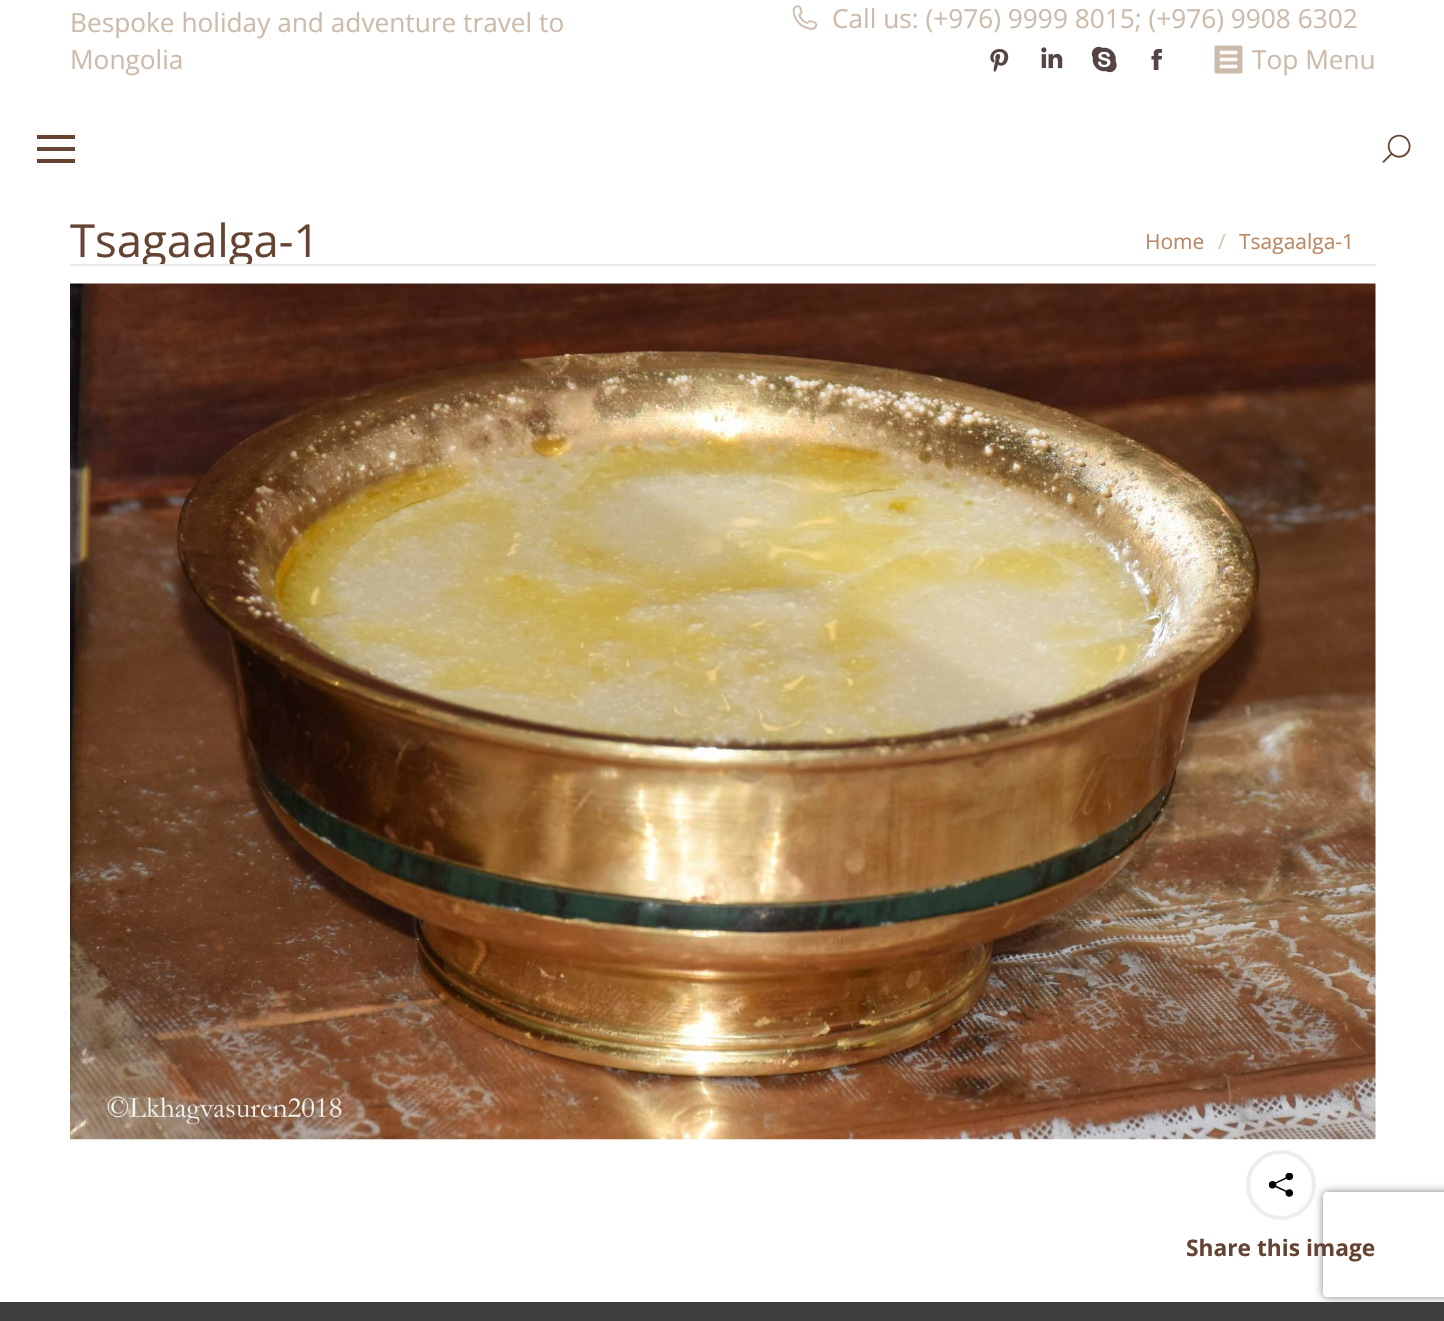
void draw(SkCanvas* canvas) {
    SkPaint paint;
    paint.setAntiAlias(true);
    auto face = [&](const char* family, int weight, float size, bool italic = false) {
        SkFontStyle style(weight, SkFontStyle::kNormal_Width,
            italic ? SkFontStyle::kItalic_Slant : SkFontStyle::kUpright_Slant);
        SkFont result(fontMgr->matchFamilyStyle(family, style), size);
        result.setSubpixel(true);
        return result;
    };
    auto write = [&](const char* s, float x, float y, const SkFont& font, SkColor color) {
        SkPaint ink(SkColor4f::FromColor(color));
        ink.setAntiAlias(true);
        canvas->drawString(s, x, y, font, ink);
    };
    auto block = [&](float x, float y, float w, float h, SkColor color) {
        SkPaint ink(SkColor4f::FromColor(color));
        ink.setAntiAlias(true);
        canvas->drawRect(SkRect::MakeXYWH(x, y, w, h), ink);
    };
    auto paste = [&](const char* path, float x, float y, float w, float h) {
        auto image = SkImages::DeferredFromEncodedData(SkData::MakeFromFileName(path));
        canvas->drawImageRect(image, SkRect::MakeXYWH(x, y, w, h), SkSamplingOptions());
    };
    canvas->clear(SK_ColorWHITE);
    auto kFont1 = face("Open Sans", 400, 26.25f);
    write("Bespoke holiday and adventure travel to", 70, 32, kFont1, SkColorSetRGB(204, 187, 170));
    write("Mongolia", 70, 69, kFont1, SkColorSetRGB(204, 187, 170));
    paste("pic1.png", 792, 5, 26, 25);
    write("Call us: (+976) 9999 8015; (+976) 9908 6302", 832, 28, kFont1, SkColorSetRGB(204, 187, 170));
    paste("pic2.png", 990, 49, 19, 23);
    paste("pic3.png", 1041, 47, 22, 22);
    paste("pic4.png", 1091, 46, 26, 27);
    paste("pic5.png", 1151, 49, 12, 21);
    paste("pic6.png", 1214, 45, 29, 29);
    write("Top Menu", 1252, 69, kFont1, SkColorSetRGB(204, 187, 170));
    block(37, 135, 38, 4, SkColorSetRGB(102, 68, 51));
    block(37, 147, 38, 4, SkColorSetRGB(102, 68, 51));
    block(37, 159, 38, 4, SkColorSetRGB(102, 68, 51));
    paste("pic7.png", 1382, 134, 29, 29);
    canvas->save();
    canvas->clipRect(SkRect::MakeXYWH(70, 215, 250, 49));
    auto kFont2 = face("Open Sans", 400, 45.5f);
    write("Tsagaalga-1", 70, 257, kFont2, SkColorSetRGB(102, 68, 51));
    canvas->restore();
    auto kFont3 = face("Open Sans", 400, 21);
    write("Home", 1145, 249, kFont3, SkColorSetRGB(187, 136, 102));
    write("/", 1218, 249, kFont3, SkColorSetRGB(221, 196, 179));
    write("Tsagaalga-1", 1239, 249, kFont3, SkColorSetRGB(187, 136, 102));
    block(70, 264, 1306, 2, SkColorSetRGB(233, 233, 233));
    paste("pic8.png", 70, 283, 1306, 857);
    canvas->save();
    canvas->clipPath(SkPathBuilder(SkPathFillType::kEvenOdd).moveTo(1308, 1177).lineTo(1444, 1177).lineTo(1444, 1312).lineTo(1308, 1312).close().moveTo(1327, 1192).lineTo(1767, 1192).cubicTo(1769, 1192, 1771, 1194, 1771, 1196).lineTo(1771, 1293).cubicTo(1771, 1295, 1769, 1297, 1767, 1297).lineTo(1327, 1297).cubicTo(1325, 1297, 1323, 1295, 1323, 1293).lineTo(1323, 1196).cubicTo(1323, 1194, 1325, 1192, 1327, 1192).close().detach(), true);
    paint.setColor(SkColorSetRGB(128, 128, 128));
    paint.setMaskFilter(SkMaskFilter::MakeBlur(kNormal_SkBlurStyle, 4.5f));
    canvas->drawRoundRect(SkRect::MakeXYWH(1323, 1192, 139, 105), 4, 4, paint);
    paint.setMaskFilter(nullptr);
    canvas->restore();
    paint.setStyle(SkPaint::kStroke_Style);
    paint.setStrokeWidth(4);
    paint.setColor(SkColorSetRGB(240, 236, 235));
    canvas->drawCircle(1281, 1185, 33, paint);
    paste("pic9.png", 1269, 1173, 24, 24);
    auto kFont4 = face("Open Sans", 700, 22.75f);
    write("Share this image", 1186, 1256, kFont4, SkColorSetRGB(102, 68, 51));
    block(0, 1302, 1444, 19, SkColorSetRGB(61, 61, 61));
}
